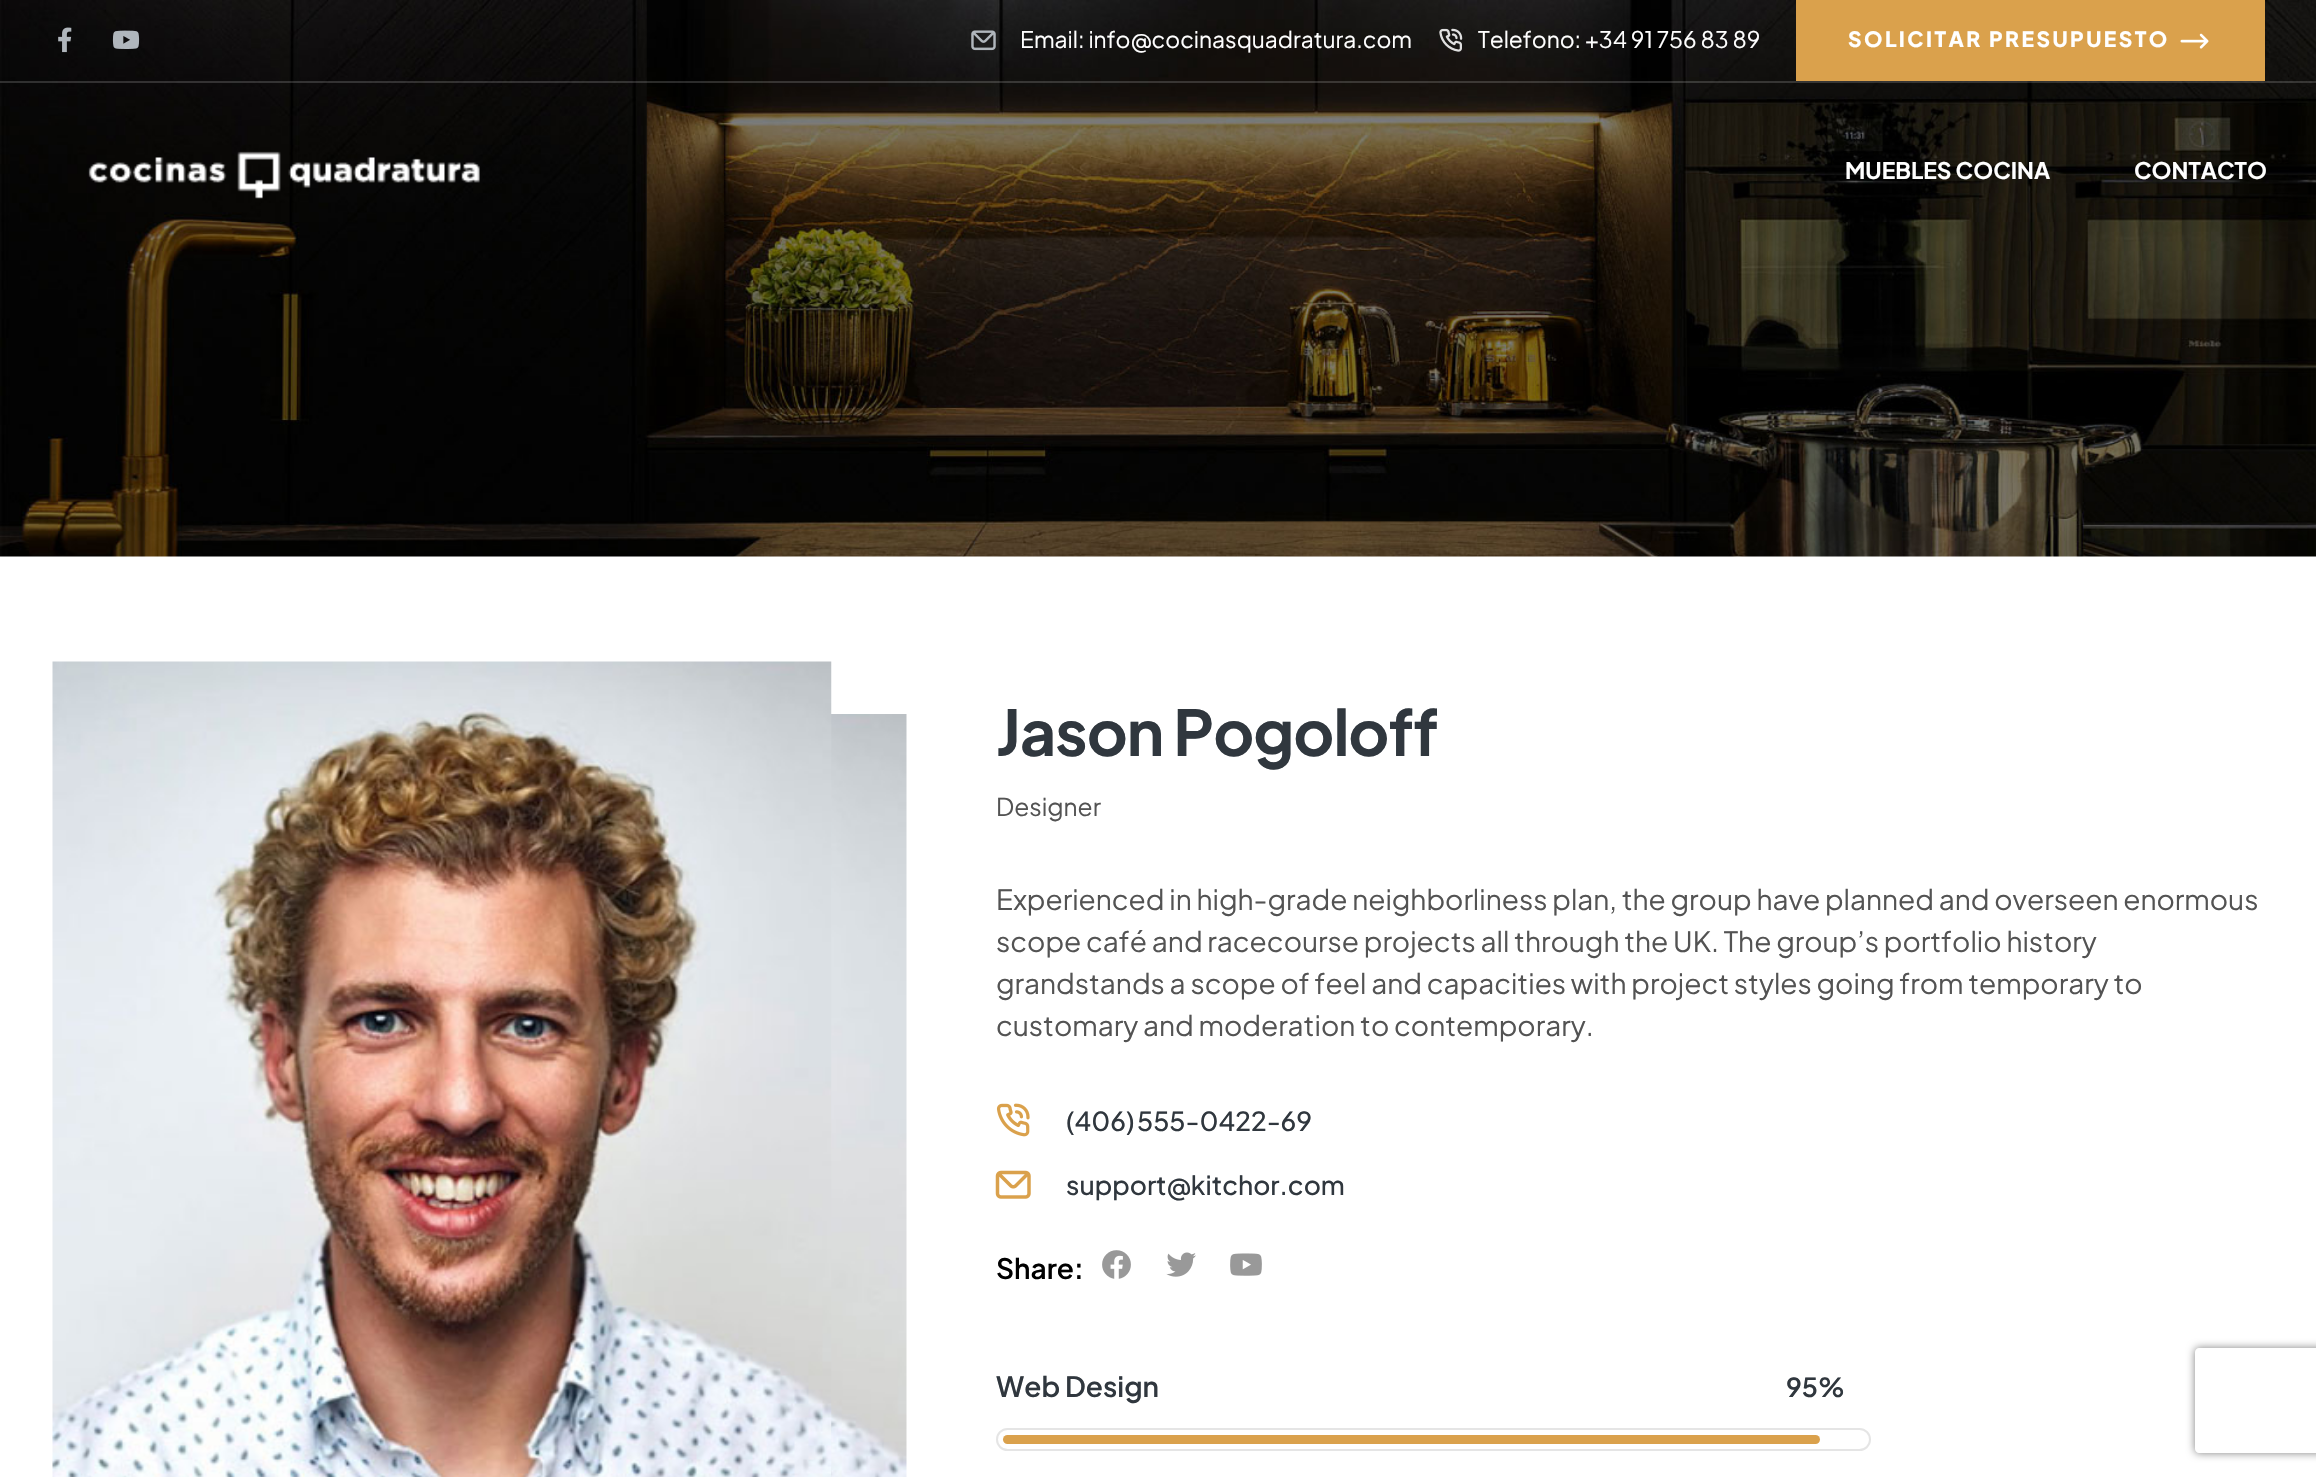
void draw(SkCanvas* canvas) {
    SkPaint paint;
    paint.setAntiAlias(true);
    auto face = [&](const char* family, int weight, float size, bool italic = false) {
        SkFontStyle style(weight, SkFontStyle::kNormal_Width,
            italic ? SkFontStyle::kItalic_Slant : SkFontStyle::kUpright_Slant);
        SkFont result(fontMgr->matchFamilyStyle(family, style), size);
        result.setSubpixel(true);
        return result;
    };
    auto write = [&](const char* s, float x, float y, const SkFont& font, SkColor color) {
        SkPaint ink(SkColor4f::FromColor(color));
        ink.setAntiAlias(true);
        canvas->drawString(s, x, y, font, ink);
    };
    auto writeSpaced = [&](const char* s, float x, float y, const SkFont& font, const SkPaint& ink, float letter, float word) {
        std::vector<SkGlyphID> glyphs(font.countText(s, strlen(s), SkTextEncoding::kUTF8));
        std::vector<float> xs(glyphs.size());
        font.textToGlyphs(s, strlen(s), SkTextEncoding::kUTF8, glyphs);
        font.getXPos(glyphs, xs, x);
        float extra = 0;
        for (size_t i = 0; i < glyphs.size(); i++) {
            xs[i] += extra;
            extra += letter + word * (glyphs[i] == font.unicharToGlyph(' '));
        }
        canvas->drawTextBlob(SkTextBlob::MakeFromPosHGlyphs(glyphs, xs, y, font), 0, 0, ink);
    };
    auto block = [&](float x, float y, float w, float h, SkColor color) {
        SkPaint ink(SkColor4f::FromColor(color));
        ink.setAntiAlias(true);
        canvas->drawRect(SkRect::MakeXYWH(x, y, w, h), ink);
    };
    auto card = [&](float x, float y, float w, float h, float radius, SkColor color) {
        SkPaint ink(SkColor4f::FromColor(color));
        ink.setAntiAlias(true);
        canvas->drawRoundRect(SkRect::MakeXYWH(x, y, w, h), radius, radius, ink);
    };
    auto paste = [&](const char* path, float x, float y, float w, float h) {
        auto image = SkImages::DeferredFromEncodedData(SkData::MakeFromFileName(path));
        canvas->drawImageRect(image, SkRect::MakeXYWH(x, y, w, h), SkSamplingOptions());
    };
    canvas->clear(SK_ColorWHITE);
    paste("pic1.png", 0, 0, 2316, 557);
    block(0, 81, 2316, 2, SkColorSetARGB(41, 255, 255, 255));
    paste("pic2.png", 58, 27, 14, 26);
    paste("pic3.png", 112, 30, 28, 19);
    paste("pic4.png", 971, 30, 25, 21);
    auto kFont1 = face("Plus Jakarta Sans", 400, 22.75f);
    write("Email: info@cocinasquadratura.com", 1020, 48, kFont1, SK_ColorWHITE);
    paste("pic5.png", 1439, 28, 24, 24);
    write("Telefono: +34 91 756 83 89", 1478, 48, kFont1, SK_ColorWHITE);
    block(1796, 0, 469, 81, SkColorSetRGB(218, 161, 76));
    auto kFont2 = face("Plus Jakarta Sans", 800, 21);
    paint.setColor(SK_ColorWHITE);
    writeSpaced("SOLICITAR PRESUPUESTO", 1848, 47, kFont2, paint, 2.45f, 0);
    paste("pic6.png", 2180, 33, 29, 16);
    paste("pic7.png", 88, 151, 392, 48);
    auto kFont3 = face("Plus Jakarta Sans", 700, 22.75f);
    write("MUEBLES COCINA", 1845, 179, kFont3, SK_ColorWHITE);
    write("CONTACTO", 2134, 179, kFont3, SK_ColorWHITE);
    paste("pic8.png", 831, 714, 76, 763);
    paste("pic9.png", 52, 661, 780, 816);
    auto kFont4 = face("Plus Jakarta Sans", 700, 63);
    paint.setColor(SkColorSetRGB(48, 55, 62));
    writeSpaced("Jason Pogoloff", 996, 756, kFont4, paint, -1, 0);
    auto kFont5 = face("Plus Jakarta Sans", 400, 24.5f);
    write("Designer", 996, 816, kFont5, SkColorSetRGB(83, 83, 83));
    auto kFont6 = face("Plus Jakarta Sans", 400, 28);
    write("Experienced in high-grade neighborliness plan, the group have planned and overseen enormous", 996, 910, kFont6, SkColorSetRGB(83, 83, 83));
    write("scope café and racecourse projects all through the UK. The group’s portfolio history", 996, 952, kFont6, SkColorSetRGB(83, 83, 83));
    write("grandstands a scope of feel and capacities with project styles going from temporary to", 996, 994, kFont6, SkColorSetRGB(83, 83, 83));
    write("customary and moderation to contemporary.", 996, 1036, kFont6, SkColorSetRGB(83, 83, 83));
    paste("pic10.png", 996, 1103, 34, 34);
    auto kFont7 = face("Plus Jakarta Sans", 500, 26.25f);
    writeSpaced("(406) 555-0422-69", 1066, 1131, kFont7, paint, 0, -2);
    paste("pic11.png", 995, 1170, 36, 29);
    write("support@kitchor.com", 1066, 1195, kFont7, SkColorSetRGB(48, 55, 62));
    auto kFont8 = face("Plus Jakarta Sans", 600, 28);
    write("Share:", 996, 1279, kFont8, SK_ColorBLACK);
    paste("pic12.png", 1102, 1250, 29, 29);
    paste("pic13.png", 1166, 1252, 30, 25);
    paste("pic14.png", 1230, 1253, 32, 23);
    write("Web Design", 996, 1397, kFont8, SkColorSetRGB(48, 55, 62));
    auto kFont9 = face("Plus Jakarta Sans", 600, 26.25f);
    write("95%", 1786, 1397, kFont9, SkColorSetRGB(48, 55, 62));
    paint.setStyle(SkPaint::kStroke_Style);
    paint.setStrokeWidth(2);
    paint.setColor(SkColorSetRGB(229, 229, 229));
    canvas->drawRoundRect(SkRect::MakeXYWH(997, 1429, 873, 21), 10.5f, 10.5f, paint);
    card(1003, 1435, 817, 9, 4.5f, SkColorSetRGB(218, 161, 76));
    canvas->save();
    canvas->clipPath(SkPathBuilder(SkPathFillType::kEvenOdd).moveTo(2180, 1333).lineTo(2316, 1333).lineTo(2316, 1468).lineTo(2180, 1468).close().moveTo(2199, 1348).lineTo(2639, 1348).cubicTo(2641, 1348, 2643, 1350, 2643, 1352).lineTo(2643, 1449).cubicTo(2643, 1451, 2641, 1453, 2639, 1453).lineTo(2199, 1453).cubicTo(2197, 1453, 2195, 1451, 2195, 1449).lineTo(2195, 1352).cubicTo(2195, 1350, 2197, 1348, 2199, 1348).close().detach(), true);
    paint.setStyle(SkPaint::kFill_Style);
    paint.setColor(SkColorSetRGB(128, 128, 128));
    paint.setMaskFilter(SkMaskFilter::MakeBlur(kNormal_SkBlurStyle, 4.5f));
    canvas->drawRoundRect(SkRect::MakeXYWH(2195, 1348, 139, 105), 4, 4, paint);
    paint.setMaskFilter(nullptr);
    canvas->restore();
}
